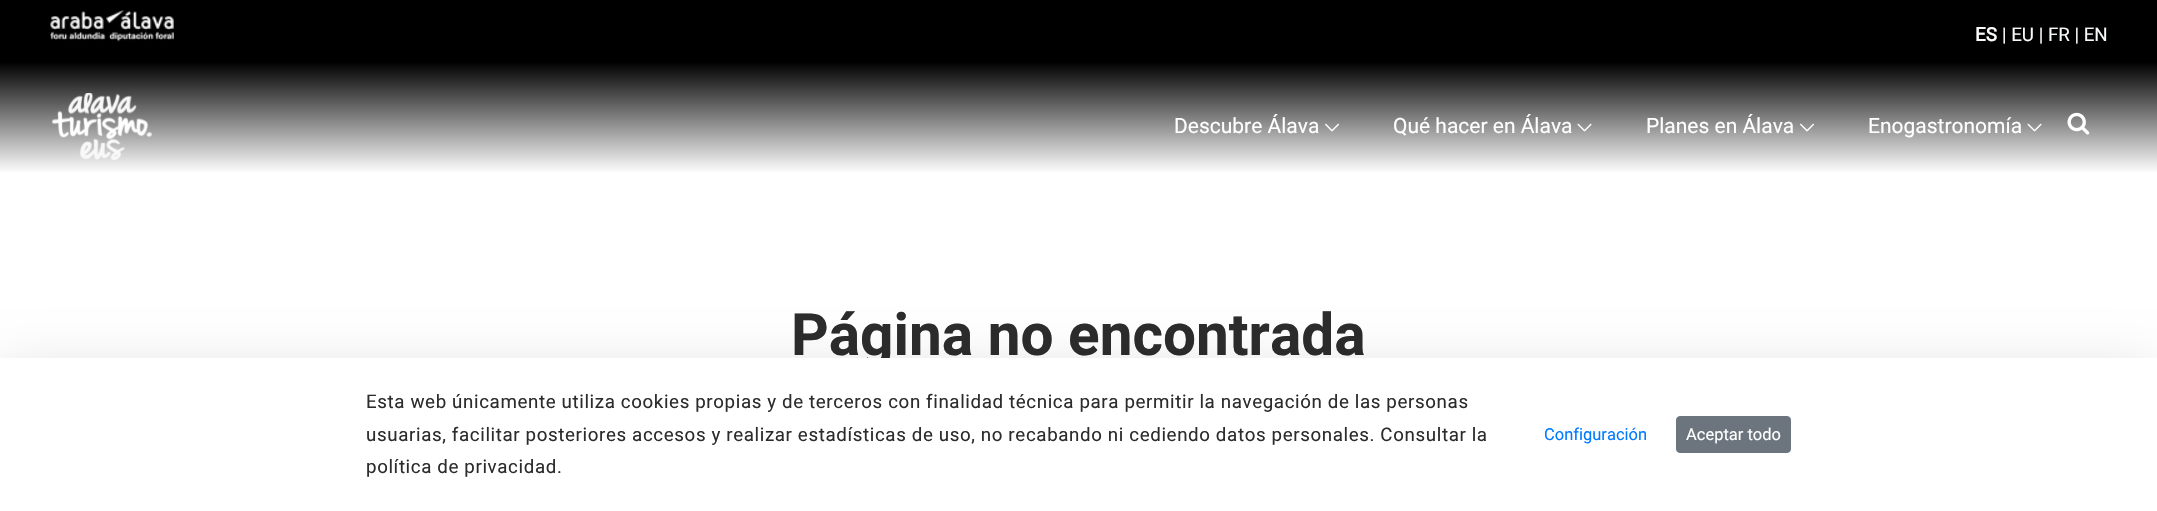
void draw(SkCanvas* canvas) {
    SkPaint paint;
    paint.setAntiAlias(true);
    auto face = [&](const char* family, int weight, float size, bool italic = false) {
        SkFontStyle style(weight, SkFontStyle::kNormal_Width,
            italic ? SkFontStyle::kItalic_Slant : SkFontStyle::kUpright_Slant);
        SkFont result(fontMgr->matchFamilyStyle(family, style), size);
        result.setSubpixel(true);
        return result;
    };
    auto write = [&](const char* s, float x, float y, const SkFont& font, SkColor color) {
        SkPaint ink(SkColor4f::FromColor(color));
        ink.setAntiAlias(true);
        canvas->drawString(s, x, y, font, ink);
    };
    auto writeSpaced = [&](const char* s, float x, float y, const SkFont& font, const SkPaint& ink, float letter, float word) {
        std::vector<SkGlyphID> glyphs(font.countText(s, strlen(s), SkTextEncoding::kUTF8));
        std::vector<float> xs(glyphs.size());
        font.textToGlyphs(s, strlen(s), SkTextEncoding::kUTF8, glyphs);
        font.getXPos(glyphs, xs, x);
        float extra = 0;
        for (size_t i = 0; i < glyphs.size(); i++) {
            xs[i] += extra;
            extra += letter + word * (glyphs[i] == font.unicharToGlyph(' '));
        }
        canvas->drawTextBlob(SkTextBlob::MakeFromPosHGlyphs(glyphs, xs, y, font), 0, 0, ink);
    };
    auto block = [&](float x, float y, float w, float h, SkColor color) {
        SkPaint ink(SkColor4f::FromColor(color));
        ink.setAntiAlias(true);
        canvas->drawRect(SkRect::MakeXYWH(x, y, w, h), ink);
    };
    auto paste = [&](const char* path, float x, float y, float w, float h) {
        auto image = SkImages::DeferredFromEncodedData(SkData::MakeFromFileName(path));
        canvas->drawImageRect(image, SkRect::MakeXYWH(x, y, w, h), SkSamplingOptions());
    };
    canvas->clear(SK_ColorWHITE);
    block(0, 0, 2157, 63, SK_ColorBLACK);
    paste("pic1.png", 50, 10, 124, 32);
    auto kFont1 = face("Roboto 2", 700, 18.75f);
    write("ES", 1975, 41, kFont1, SkColorSetRGB(248, 249, 250));
    auto kFont2 = face("Roboto", 400, 18.75f);
    write("| EU | FR | EN", 2002, 41, kFont2, SkColorSetRGB(248, 249, 250));
    {
        const SkColor colors[] = {SK_ColorBLACK, SK_ColorWHITE, SK_ColorWHITE};
        const float stops[] = {0, 0.87f, 1};
        const SkPoint ends[] = {{1079, 62}, {1079, 190}};
        paint.setShader(SkGradientShader::MakeLinear(ends, colors, stops, 3, SkTileMode::kClamp));
        paint.setAlpha(255);
    }
    canvas->drawRect(SkRect::MakeXYWH(0, 63, 2157, 109), paint);
    paste("pic2.png", 51, 93, 102, 67);
    auto kFont3 = face("Roboto", 400, 21);
    write("Descubre Álava", 1174, 133, kFont3, SK_ColorWHITE);
    paste("pic3.png", 1325, 123, 14, 9);
    write("Qué hacer en Álava", 1393, 133, kFont3, SK_ColorWHITE);
    paste("pic4.png", 1577, 123, 15, 9);
    write("Planes en Álava", 1646, 133, kFont3, SK_ColorWHITE);
    paste("pic3.png", 1800, 123, 14, 9);
    write("Enogastronomía", 1868, 133, kFont3, SK_ColorWHITE);
    paste("pic4.png", 2027, 123, 15, 9);
    paste("pic5.png", 2067, 112, 23, 23);
    auto kFont4 = face("Roboto", 700, 58.5f);
    write("Página no encontrada", 791, 355, kFont4, SkColorSetRGB(44, 44, 44));
    paint.setShader(nullptr);
    paint.setColor(SkColorSetARGB(46, 0, 0, 0));
    paint.setMaskFilter(SkMaskFilter::MakeBlur(kNormal_SkBlurStyle, 30));
    canvas->drawRect(SkRect::MakeXYWH(0, 378, 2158, 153), paint);
    paint.setMaskFilter(nullptr);
    block(0, 358, 2157, 153, SK_ColorWHITE);
    paint.setColor(SkColorSetRGB(44, 44, 44));
    writeSpaced("Esta web únicamente utiliza cookies propias y de terceros con finalidad técnica para permitir la navegación de las personas", 366, 408, kFont2, paint, 0.62f, 0);
    writeSpaced("usuarias, facilitar posteriores accesos y realizar estadísticas de uso, no recabando ni cediendo datos personales. Consultar la", 366, 441, kFont2, paint, 0.62f, 0);
    writeSpaced("política de privacidad.", 366, 473, kFont2, paint, 0.62f, 0);
    auto kFont5 = face("Roboto", 400, 16.5f);
    write("Configuración", 1544, 440, kFont5, SkColorSetRGB(0, 123, 255));
    paint.setColor(SkColorSetRGB(108, 117, 125));
    canvas->drawRoundRect(SkRect::MakeXYWH(1676.5f, 416.5f, 114, 36), 3.5f, 3.5f, paint);
    paint.setStyle(SkPaint::kStroke_Style);
    paint.setStrokeWidth(1);
    canvas->drawRoundRect(SkRect::MakeXYWH(1676.5f, 416.5f, 114, 36), 3.5f, 3.5f, paint);
    write("Aceptar todo", 1686, 440, kFont5, SK_ColorWHITE);
}
